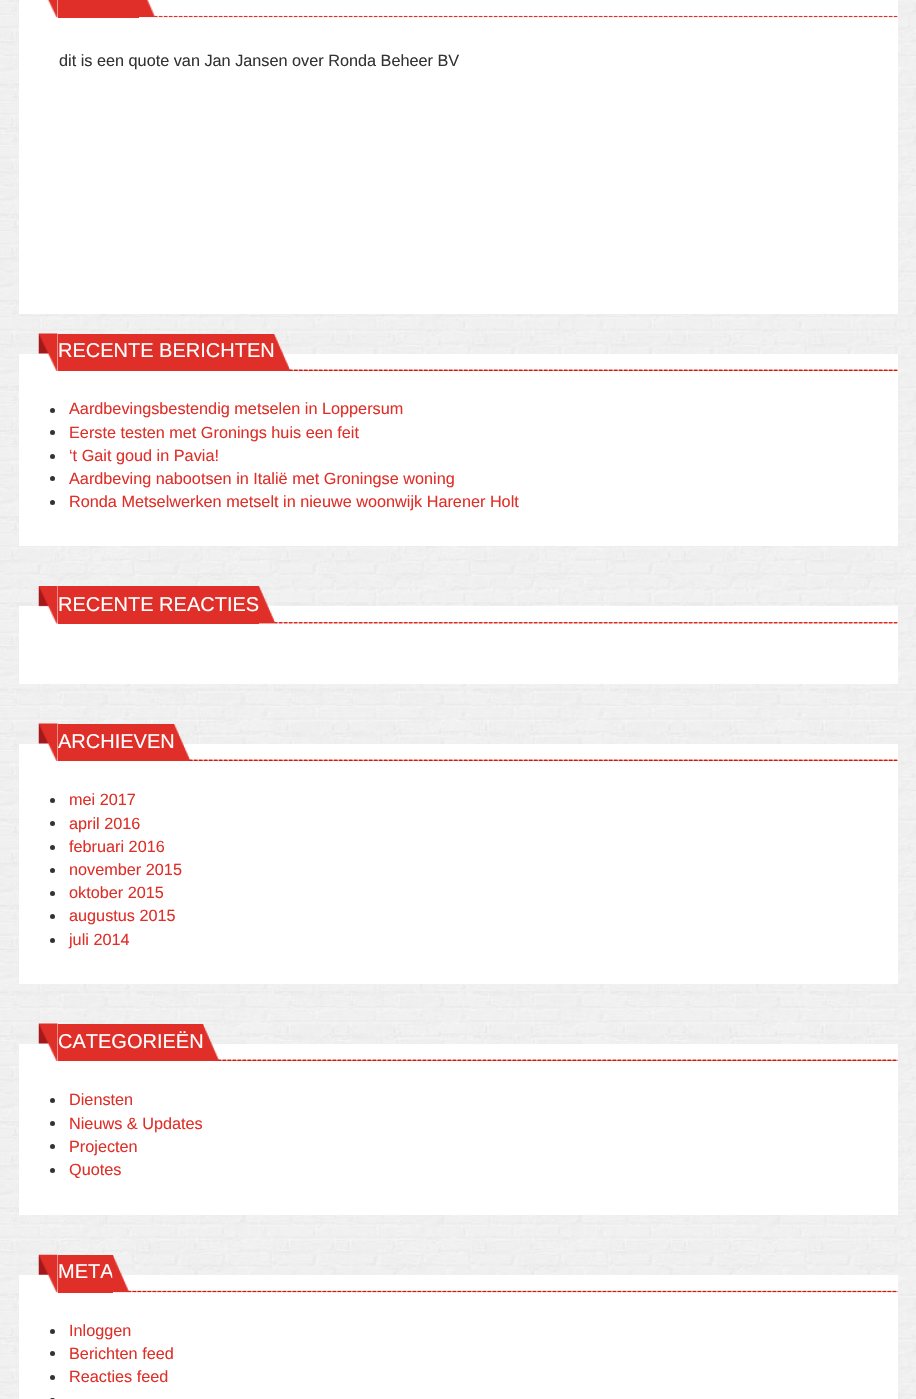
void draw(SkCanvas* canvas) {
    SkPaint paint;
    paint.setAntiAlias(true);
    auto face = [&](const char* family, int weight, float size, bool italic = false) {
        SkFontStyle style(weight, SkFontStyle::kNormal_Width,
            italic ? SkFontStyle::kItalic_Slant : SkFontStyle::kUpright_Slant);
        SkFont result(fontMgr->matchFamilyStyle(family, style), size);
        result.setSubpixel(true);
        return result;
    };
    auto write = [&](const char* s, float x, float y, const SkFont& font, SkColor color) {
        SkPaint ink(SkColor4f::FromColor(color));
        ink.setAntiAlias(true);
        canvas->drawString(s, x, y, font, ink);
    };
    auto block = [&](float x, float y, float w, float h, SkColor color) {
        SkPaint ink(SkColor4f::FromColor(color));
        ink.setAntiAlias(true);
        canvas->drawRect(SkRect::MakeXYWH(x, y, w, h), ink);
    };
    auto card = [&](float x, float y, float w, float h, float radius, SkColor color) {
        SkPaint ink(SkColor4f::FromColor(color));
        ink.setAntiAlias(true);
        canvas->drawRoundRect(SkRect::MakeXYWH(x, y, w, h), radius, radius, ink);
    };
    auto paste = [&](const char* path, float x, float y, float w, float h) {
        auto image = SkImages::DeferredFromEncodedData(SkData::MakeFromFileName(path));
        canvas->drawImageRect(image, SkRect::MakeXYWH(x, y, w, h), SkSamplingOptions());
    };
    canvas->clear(SK_ColorWHITE);
    paste("pic1.png", 0, 0, 916, 1399);
    block(19, 0, 879, 314, SK_ColorWHITE);
    paste("pic2.png", 47, 0, 11, 18);
    block(58, 0, 81, 18, SkColorSetRGB(224, 47, 40));
    paste("pic3.png", 139, 0, 759, 18);
    auto kFont1 = face("Liberation Sans", 400, 16.25f);
    write("dit is een quote van Jan Jansen over Ronda Beheer BV", 59, 66, kFont1, SkColorSetRGB(51, 51, 51));
    block(19, 354, 879, 192, SK_ColorWHITE);
    paste("pic4.png", 38, 333, 20, 38);
    block(58, 334, 216, 37, SkColorSetRGB(224, 47, 40));
    auto kFont2 = face("Liberation Sans", 400, 20);
    write("RECENTE BERICHTEN", 58, 357, kFont2, SK_ColorWHITE);
    paste("pic5.png", 274, 334, 624, 37);
    paste("pic6.png", 274, 334, 624, 37);
    paint.setColor(SkColorSetRGB(51, 51, 51));
    canvas->drawCircle(52.5f, 410.5f, 2.5f, paint);
    write("Aardbevingsbestendig metselen in Loppersum", 69, 414, kFont1, SkColorSetRGB(224, 47, 40));
    canvas->drawCircle(52.5f, 432.5f, 2.5f, paint);
    write("Eerste testen met Gronings huis een feit", 69, 438, kFont1, SkColorSetRGB(224, 47, 40));
    canvas->drawCircle(52.5f, 456.5f, 2.5f, paint);
    write("‘t Gait goud in Pavia!", 69, 461, kFont1, SkColorSetRGB(224, 47, 40));
    canvas->drawCircle(52.5f, 478.5f, 2.5f, paint);
    write("Aardbeving nabootsen in Italië met Groningse woning", 69, 484, kFont1, SkColorSetRGB(224, 47, 40));
    canvas->drawCircle(52.5f, 502.5f, 2.5f, paint);
    write("Ronda Metselwerken metselt in nieuwe woonwijk Harener Holt", 69, 507, kFont1, SkColorSetRGB(224, 47, 40));
    block(19, 606, 879, 78, SK_ColorWHITE);
    paste("pic7.png", 38, 586, 20, 38);
    block(58, 586, 201, 38, SkColorSetRGB(224, 47, 40));
    write("RECENTE REACTIES", 58, 611, kFont2, SK_ColorWHITE);
    paste("pic8.png", 259, 586, 639, 38);
    paste("pic9.png", 259, 586, 639, 38);
    block(19, 744, 879, 240, SK_ColorWHITE);
    paste("pic10.png", 38, 723, 20, 38);
    block(58, 724, 116, 37, SkColorSetRGB(224, 47, 40));
    write("ARCHIEVEN", 58, 748, kFont2, SK_ColorWHITE);
    paste("pic11.png", 174, 724, 724, 37);
    paste("pic12.png", 174, 724, 724, 37);
    canvas->drawCircle(52.5f, 800.5f, 2.5f, paint);
    write("mei 2017", 69, 805, kFont1, SkColorSetRGB(224, 47, 40));
    canvas->drawCircle(52.5f, 823.5f, 2.5f, paint);
    write("april 2016", 69, 829, kFont1, SkColorSetRGB(224, 47, 40));
    canvas->drawCircle(52.5f, 847.5f, 2.5f, paint);
    write("februari 2016", 69, 852, kFont1, SkColorSetRGB(224, 47, 40));
    canvas->drawCircle(52.5f, 870.5f, 2.5f, paint);
    write("november 2015", 69, 875, kFont1, SkColorSetRGB(224, 47, 40));
    canvas->drawCircle(52.5f, 893.5f, 2.5f, paint);
    write("oktober 2015", 69, 898, kFont1, SkColorSetRGB(224, 47, 40));
    canvas->drawCircle(52.5f, 916.5f, 2.5f, paint);
    write("augustus 2015", 69, 921, kFont1, SkColorSetRGB(224, 47, 40));
    canvas->drawCircle(52.5f, 940.5f, 2.5f, paint);
    write("juli 2014", 69, 945, kFont1, SkColorSetRGB(224, 47, 40));
    block(19, 1044, 879, 171, SK_ColorWHITE);
    paste("pic13.png", 38, 1023, 20, 38);
    block(58, 1024, 145, 37, SkColorSetRGB(224, 47, 40));
    write("CATEGORIEËN", 58, 1048, kFont2, SK_ColorWHITE);
    paste("pic14.png", 203, 1024, 695, 37);
    paste("pic15.png", 203, 1024, 695, 37);
    canvas->drawCircle(52.5f, 1100.5f, 2.5f, paint);
    write("Diensten", 69, 1105, kFont1, SkColorSetRGB(224, 47, 40));
    canvas->drawCircle(52.5f, 1123.5f, 2.5f, paint);
    write("Nieuws & Updates", 69, 1129, kFont1, SkColorSetRGB(224, 47, 40));
    canvas->drawCircle(52.5f, 1146.5f, 2.5f, paint);
    write("Projecten", 69, 1152, kFont1, SkColorSetRGB(224, 47, 40));
    canvas->drawCircle(52.5f, 1170.5f, 2.5f, paint);
    write("Quotes", 69, 1175, kFont1, SkColorSetRGB(224, 47, 40));
    block(19, 1275, 879, 124, SK_ColorWHITE);
    paste("pic16.png", 38, 1254, 20, 39);
    block(58, 1255, 55, 38, SkColorSetRGB(224, 47, 40));
    write("META", 58, 1278, kFont2, SK_ColorWHITE);
    paste("pic17.png", 112, 1255, 786, 38);
    paste("pic18.png", 112, 1255, 786, 38);
    canvas->drawCircle(52.5f, 1331.5f, 2.5f, paint);
    write("Inloggen", 69, 1336, kFont1, SkColorSetRGB(224, 47, 40));
    canvas->drawCircle(52.5f, 1353.5f, 2.5f, paint);
    write("Berichten feed", 69, 1359, kFont1, SkColorSetRGB(224, 47, 40));
    canvas->drawCircle(52.5f, 1377.5f, 2.5f, paint);
    write("Reacties feed", 69, 1382, kFont1, SkColorSetRGB(224, 47, 40));
    card(50, 1398, 5, 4, 2.5f, SkColorSetRGB(51, 51, 51));
}
